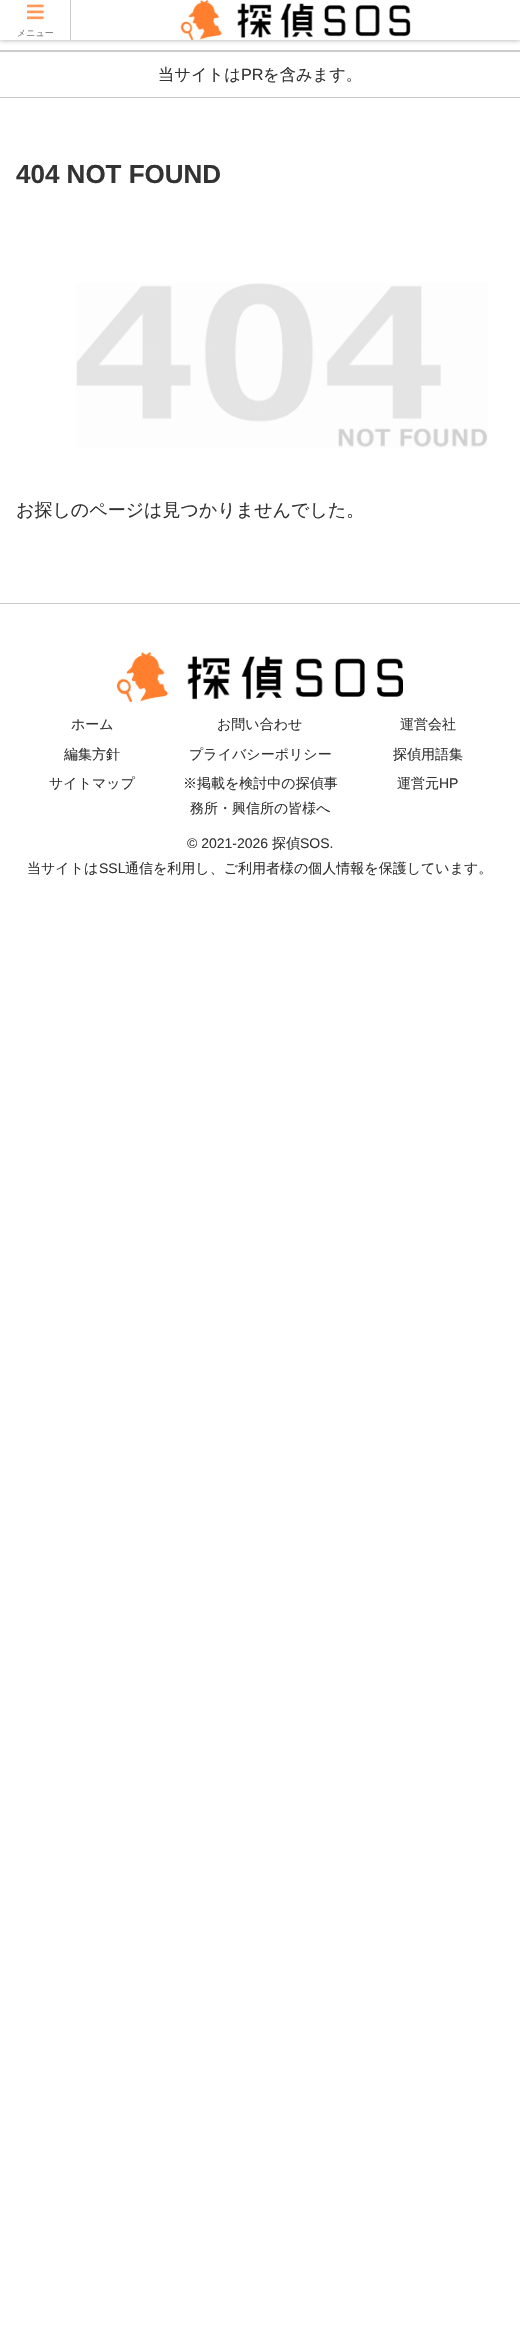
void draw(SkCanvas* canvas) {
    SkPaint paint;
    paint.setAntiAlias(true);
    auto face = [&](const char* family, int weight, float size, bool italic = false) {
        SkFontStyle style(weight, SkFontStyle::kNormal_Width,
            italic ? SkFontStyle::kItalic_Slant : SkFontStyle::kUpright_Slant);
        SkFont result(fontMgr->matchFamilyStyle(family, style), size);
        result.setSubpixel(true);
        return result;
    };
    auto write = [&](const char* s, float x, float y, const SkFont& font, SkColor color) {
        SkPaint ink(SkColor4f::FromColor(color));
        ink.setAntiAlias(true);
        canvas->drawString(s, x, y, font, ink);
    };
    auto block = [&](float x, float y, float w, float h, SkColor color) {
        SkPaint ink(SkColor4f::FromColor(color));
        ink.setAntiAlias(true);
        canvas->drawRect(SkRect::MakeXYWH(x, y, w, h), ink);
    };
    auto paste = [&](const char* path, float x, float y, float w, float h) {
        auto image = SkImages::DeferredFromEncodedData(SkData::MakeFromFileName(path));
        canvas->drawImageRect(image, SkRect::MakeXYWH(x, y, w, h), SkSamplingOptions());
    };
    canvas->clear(SK_ColorWHITE);
    canvas->save();
    canvas->clipRect(SkRect::MakeXYWH(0, 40, 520, 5));
    paint.setColor(SkColorSetRGB(169, 169, 169));
    paint.setMaskFilter(SkMaskFilter::MakeBlur(kNormal_SkBlurStyle, 2.5f));
    canvas->drawRect(SkRect::MakeXYWH(0, 0, 520, 40), paint);
    paint.setMaskFilter(nullptr);
    canvas->restore();
    paste("pic1.png", 27, 4, 17, 16);
    auto kFont1 = face("WenQuanYi Zen Hei", 500, 9);
    write("メニュー", 17, 36, kFont1, SkColorSetRGB(124, 124, 124));
    block(70, 0, 1, 40, SkColorSetRGB(204, 204, 204));
    paste("pic2.png", 180, 0, 231, 40);
    block(0, 50, 520, 2, SkColorSetRGB(204, 204, 204));
    block(0, 97, 520, 1, SkColorSetRGB(204, 204, 204));
    auto kFont2 = face("WenQuanYi Zen Hei", 500, 16.25f);
    write("当サイトは", 158, 80, kFont2, SkColorSetRGB(51, 51, 51));
    auto kFont3 = face("Liberation Sans", 400, 16.25f);
    write("PR", 241, 80, kFont3, SkColorSetRGB(51, 51, 51));
    write("を含みます。", 263, 80, kFont2, SkColorSetRGB(51, 51, 51));
    auto kFont4 = face("Liberation Sans", 700, 26);
    write("404 NOT FOUND", 16, 183, kFont4, SkColorSetRGB(51, 51, 51));
    paste("pic3.png", 76, 283, 412, 165);
    auto kFont5 = face("WenQuanYi Zen Hei", 500, 18);
    write("お探しのページは見つかりませんでした。", 16, 516, kFont5, SkColorSetRGB(51, 51, 51));
    block(0, 603, 520, 1, SkColorSetRGB(204, 204, 204));
    paste("pic4.png", 117, 652, 286, 50);
    auto kFont6 = face("WenQuanYi Zen Hei", 500, 14);
    write("ホーム", 71, 729, kFont6, SkColorSetRGB(51, 51, 51));
    write("お問い合わせ", 217, 729, kFont6, SkColorSetRGB(51, 51, 51));
    write("運営会社", 400, 729, kFont6, SkColorSetRGB(51, 51, 51));
    write("編集方針", 64, 759, kFont6, SkColorSetRGB(51, 51, 51));
    write("プライバシーポリシー", 189, 759, kFont6, SkColorSetRGB(51, 51, 51));
    write("探偵用語集", 393, 759, kFont6, SkColorSetRGB(51, 51, 51));
    write("サイトマップ", 49, 788, kFont6, SkColorSetRGB(51, 51, 51));
    write("※掲載を検討中の探偵事", 183, 788, kFont6, SkColorSetRGB(51, 51, 51));
    write("務所・興信所の皆様へ", 190, 813, kFont6, SkColorSetRGB(51, 51, 51));
    write("運営元", 397, 788, kFont6, SkColorSetRGB(51, 51, 51));
    auto kFont7 = face("Liberation Sans", 400, 14);
    write("HP", 439, 788, kFont7, SkColorSetRGB(51, 51, 51));
    write("© 2021-2026", 187, 848, kFont7, SkColorSetRGB(51, 51, 51));
    write("探偵", 272, 848, kFont6, SkColorSetRGB(51, 51, 51));
    write("SOS.", 300, 848, kFont7, SkColorSetRGB(51, 51, 51));
    write("当サイトは", 27, 873, kFont6, SkColorSetRGB(51, 51, 51));
    write("SSL", 99, 873, kFont7, SkColorSetRGB(51, 51, 51));
    write("通信を利用し、ご利用者様の個人情報を保護しています。", 125, 873, kFont6, SkColorSetRGB(51, 51, 51));
}
